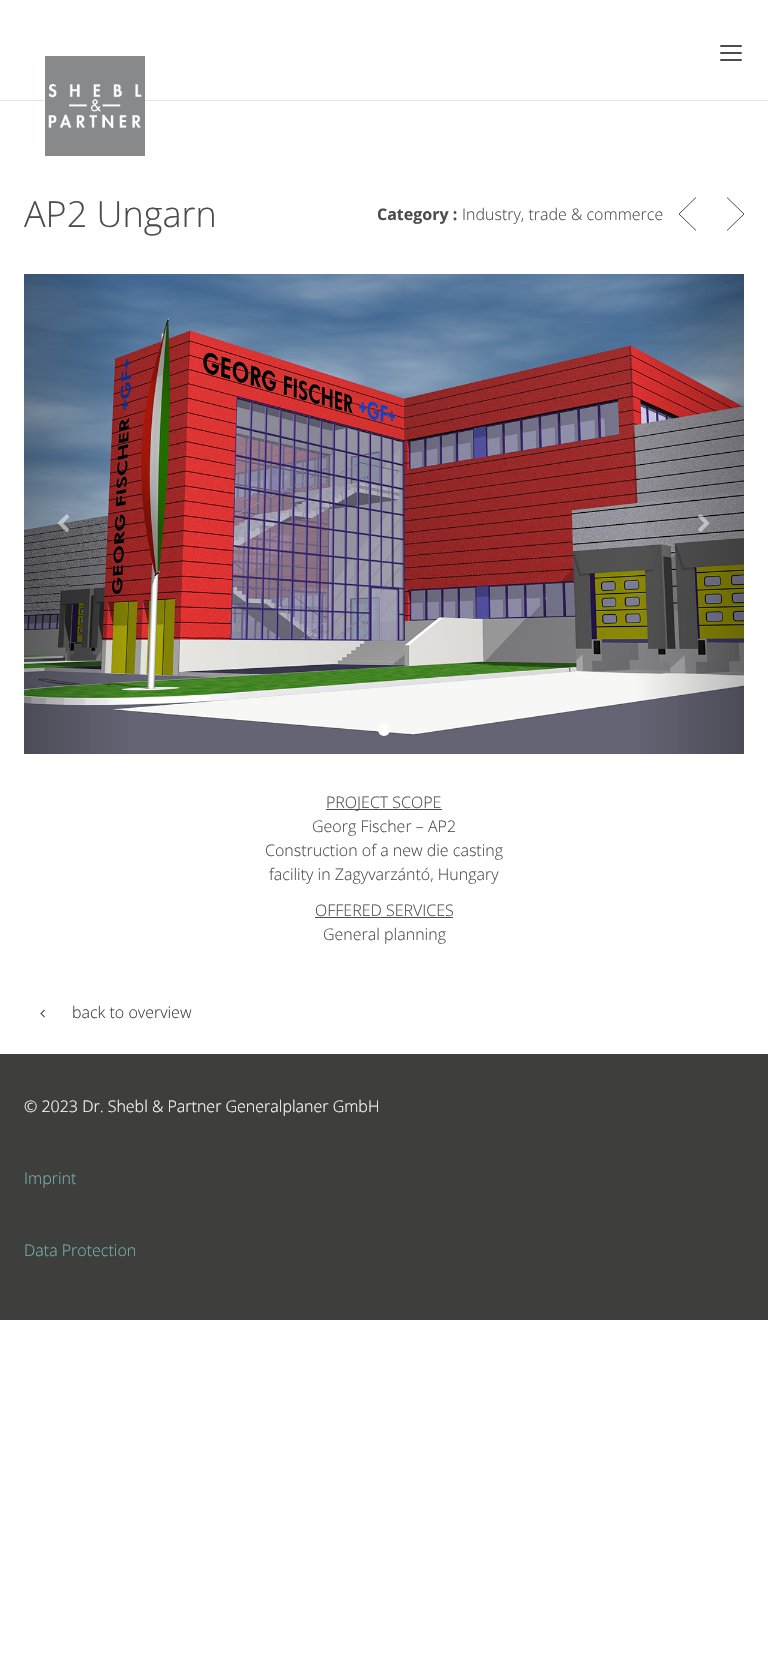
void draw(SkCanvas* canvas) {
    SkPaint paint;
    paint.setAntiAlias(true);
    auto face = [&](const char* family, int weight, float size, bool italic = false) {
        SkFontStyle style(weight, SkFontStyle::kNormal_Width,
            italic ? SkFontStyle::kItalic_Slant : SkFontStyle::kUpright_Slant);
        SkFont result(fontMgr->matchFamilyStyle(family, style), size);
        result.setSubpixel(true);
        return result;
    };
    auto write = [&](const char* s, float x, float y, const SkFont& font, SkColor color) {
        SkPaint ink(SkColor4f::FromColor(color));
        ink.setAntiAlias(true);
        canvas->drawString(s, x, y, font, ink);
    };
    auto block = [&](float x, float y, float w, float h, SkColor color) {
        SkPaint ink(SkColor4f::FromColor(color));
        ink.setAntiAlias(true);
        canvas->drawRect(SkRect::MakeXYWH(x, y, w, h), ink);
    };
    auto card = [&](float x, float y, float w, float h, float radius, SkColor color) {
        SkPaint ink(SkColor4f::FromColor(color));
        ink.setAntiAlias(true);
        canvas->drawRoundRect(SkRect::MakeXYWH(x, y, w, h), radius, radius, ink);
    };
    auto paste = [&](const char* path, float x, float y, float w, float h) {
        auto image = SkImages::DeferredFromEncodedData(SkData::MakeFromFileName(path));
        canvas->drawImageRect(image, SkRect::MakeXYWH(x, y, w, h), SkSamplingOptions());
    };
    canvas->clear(SK_ColorWHITE);
    canvas->save();
    canvas->clipRect(SkRect::MakeXYWH(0, 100, 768, 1));
    paint.setColor(SkColorSetARGB(26, 0, 0, 0));
    paint.setMaskFilter(SkMaskFilter::MakeBlur(kNormal_SkBlurStyle, 0.5f));
    canvas->drawRect(SkRect::MakeXYWH(0, 1, 768, 100), paint);
    paint.setMaskFilter(nullptr);
    canvas->restore();
    card(720, 45, 22, 2, 1, SkColorSetRGB(76, 76, 76));
    card(720, 52, 22, 2, 1, SkColorSetRGB(76, 76, 76));
    card(720, 59, 22, 2, 1, SkColorSetRGB(76, 76, 76));
    paste("pic1.png", 45, 56, 100, 100);
    auto kFont1 = face("Open Sans", 300, 36);
    write("AP2 Ungarn", 24, 227, kFont1, SkColorSetRGB(76, 76, 76));
    auto kFont2 = face("Open Sans", 700, 16);
    write("Category :", 377, 220, kFont2, SkColorSetRGB(76, 76, 76));
    auto kFont3 = face("Open Sans", 300, 16);
    write("Industry, trade & commerce", 462, 220, kFont3, SkColorSetRGB(76, 76, 76));
    paint.setStyle(SkPaint::kStroke_Style);
    paint.setStrokeWidth(1);
    paint.setColor(SkColorSetRGB(76, 76, 76));
    canvas->drawPath(SkPathBuilder().moveTo(696, 197.5f).lineTo(679, 214).lineTo(696, 230.5f).detach(), paint);
    canvas->drawPath(SkPathBuilder().moveTo(727, 197.5f).lineTo(744, 214).lineTo(727, 230.5f).detach(), paint);
    paste("pic2.png", 24, 274, 720, 480);
    paste("pic3.png", 57, 514, 13, 18);
    paste("pic4.png", 698, 514, 12, 18);
    paint.setStyle(SkPaint::kFill_Style);
    paint.setColor(SK_ColorWHITE);
    canvas->drawCircle(384, 730, 4.5f, paint);
    paint.setStyle(SkPaint::kStroke_Style);
    paint.setStrokeWidth(3);
    canvas->drawCircle(384, 730, 4.5f, paint);
    block(326, 809, 116, 1, SkColorSetRGB(76, 76, 76));
    write("PROJECT SCOPE", 326, 808, kFont3, SkColorSetRGB(76, 76, 76));
    write("Georg Fischer – AP2", 312, 832, kFont3, SkColorSetRGB(76, 76, 76));
    write("Construction of a new die casting", 265, 856, kFont3, SkColorSetRGB(76, 76, 76));
    write("facility in Zagyvarzántó, Hungary", 269, 880, kFont3, SkColorSetRGB(76, 76, 76));
    write("OFFERED SERVICES", 315, 916, kFont3, SkColorSetRGB(76, 76, 76));
    block(315, 917, 138, 1, SkColorSetRGB(76, 76, 76));
    write("General planning", 323, 940, kFont3, SkColorSetRGB(76, 76, 76));
    paste("pic5.png", 40, 1009, 5, 9);
    write("back to overview", 72, 1018, kFont3, SkColorSetRGB(62, 63, 60));
    block(0, 1054, 768, 266, SkColorSetRGB(62, 63, 60));
    write("© 2023 Dr. Shebl & Partner Generalplaner GmbH", 24, 1112, kFont3, SK_ColorWHITE);
    write("Imprint", 24, 1184, kFont3, SkColorSetRGB(118, 176, 176));
    write("Data Protection", 24, 1256, kFont3, SkColorSetRGB(118, 176, 176));
}
